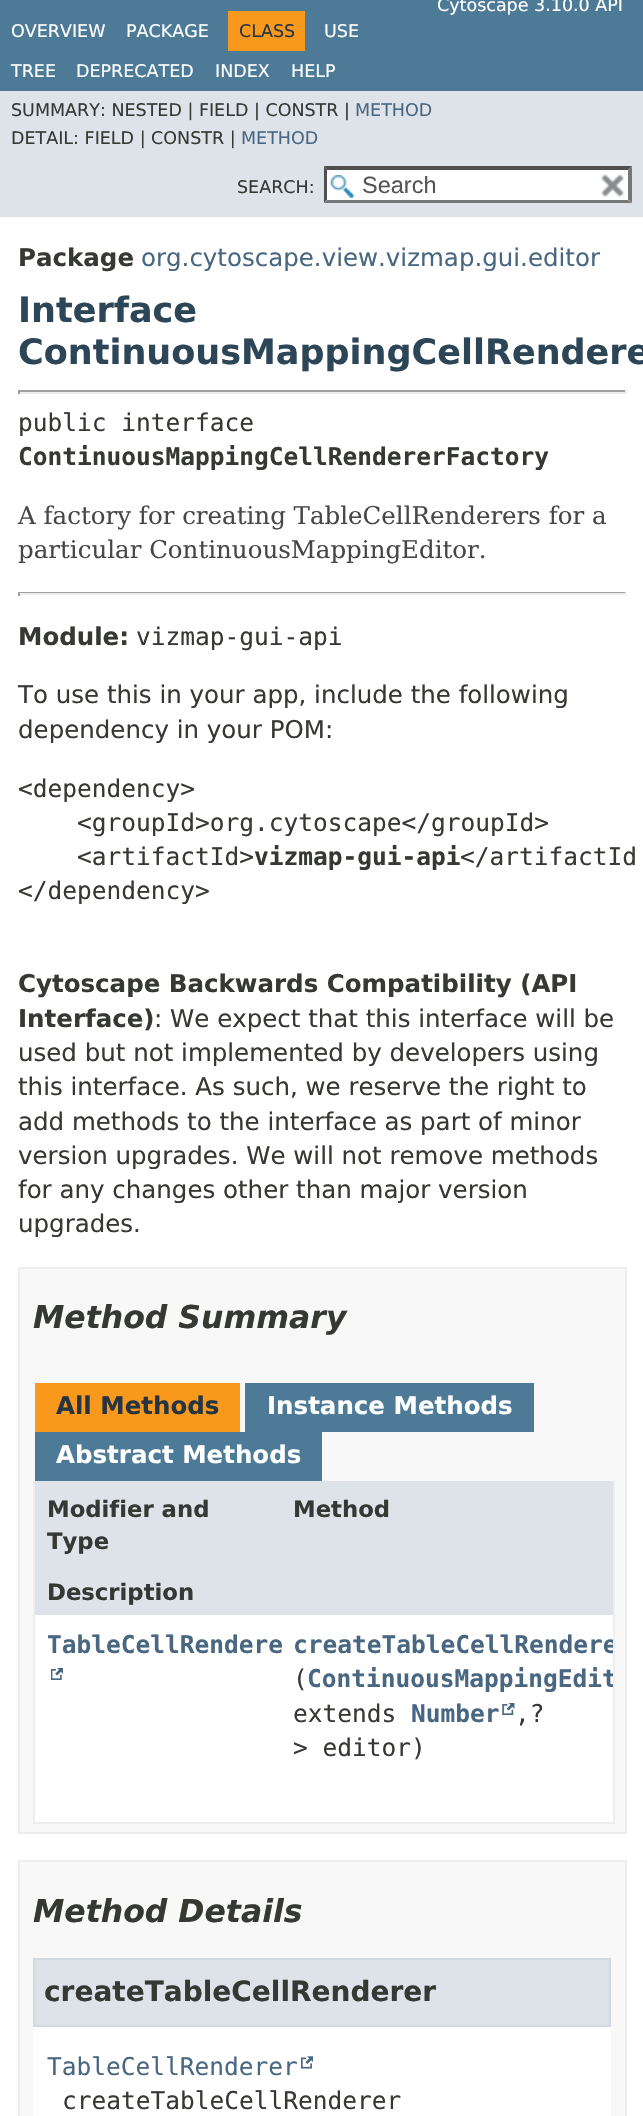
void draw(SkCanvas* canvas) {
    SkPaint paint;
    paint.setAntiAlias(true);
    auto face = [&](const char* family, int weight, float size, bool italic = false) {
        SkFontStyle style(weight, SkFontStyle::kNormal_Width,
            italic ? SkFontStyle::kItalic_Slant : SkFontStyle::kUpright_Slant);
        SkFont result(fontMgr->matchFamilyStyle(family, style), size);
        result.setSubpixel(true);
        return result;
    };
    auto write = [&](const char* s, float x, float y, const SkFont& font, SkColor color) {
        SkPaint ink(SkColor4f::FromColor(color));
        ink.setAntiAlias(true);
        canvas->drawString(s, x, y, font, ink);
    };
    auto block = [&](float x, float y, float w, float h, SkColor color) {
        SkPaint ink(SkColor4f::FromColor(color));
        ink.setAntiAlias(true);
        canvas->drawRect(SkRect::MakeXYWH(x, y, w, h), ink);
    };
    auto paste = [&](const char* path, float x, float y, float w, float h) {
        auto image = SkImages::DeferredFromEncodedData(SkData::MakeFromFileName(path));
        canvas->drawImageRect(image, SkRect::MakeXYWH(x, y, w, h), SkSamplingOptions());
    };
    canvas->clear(SK_ColorWHITE);
    block(0, 0, 643, 91, SkColorSetRGB(77, 122, 151));
    auto kFont1 = face("DejaVu Sans", 400, 17.5f);
    write("Cytoscape 3.10.0 API", 437, 11, kFont1, SK_ColorWHITE);
    write("OVERVIEW", 11, 37, kFont1, SK_ColorWHITE);
    write("PACKAGE", 126, 37, kFont1, SK_ColorWHITE);
    block(228, 11, 77, 40, SkColorSetRGB(248, 152, 29));
    write("CLASS", 239, 37, kFont1, SkColorSetRGB(37, 52, 65));
    write("USE", 324, 37, kFont1, SK_ColorWHITE);
    write("TREE", 11, 77, kFont1, SK_ColorWHITE);
    write("DEPRECATED", 76, 77, kFont1, SK_ColorWHITE);
    write("INDEX", 215, 77, kFont1, SK_ColorWHITE);
    write("HELP", 291, 77, kFont1, SK_ColorWHITE);
    block(0, 91, 643, 126, SkColorSetRGB(222, 227, 233));
    write("SUMMARY: NESTED | FIELD | CONSTR |", 11, 116, kFont1, SkColorSetRGB(53, 56, 51));
    write("METHOD", 355, 116, kFont1, SkColorSetRGB(74, 103, 130));
    write("DETAIL: FIELD | CONSTR |", 11, 144, kFont1, SkColorSetRGB(53, 56, 51));
    write("METHOD", 241, 144, kFont1, SkColorSetRGB(74, 103, 130));
    write("SEARCH:", 237, 193, kFont1, SkColorSetRGB(53, 56, 51));
    block(324, 166, 308, 37, SK_ColorWHITE);
    paste("pic1.png", 330, 175, 24, 23);
    paint.setColor(SkColorSetRGB(79, 79, 79));
    canvas->drawPath(SkPathBuilder().moveTo(324, 166).lineTo(632, 166).lineTo(628, 170).lineTo(327, 170).close().detach(), paint);
    paint.setColor(SkColorSetRGB(118, 118, 118));
    canvas->drawPath(SkPathBuilder().moveTo(632, 166).lineTo(632, 203).lineTo(628, 199.5f).lineTo(628, 170).close().detach(), paint);
    canvas->drawPath(SkPathBuilder().moveTo(632, 203).lineTo(324, 203).lineTo(327, 200).lineTo(628, 200).close().detach(), paint);
    paint.setColor(SkColorSetRGB(79, 79, 79));
    canvas->drawPath(SkPathBuilder().moveTo(324, 203).lineTo(324, 166).lineTo(327, 170).lineTo(327, 199.5f).close().detach(), paint);
    auto kFont2 = face("Liberation Sans", 400, 23.5f);
    write("Search", 362, 193, kFont2, SkColorSetRGB(84, 84, 84));
    paste("pic2.png", 601, 174, 23, 23);
    auto kFont3 = face("DejaVu Sans", 700, 24.5f);
    write("Package", 18, 266, kFont3, SkColorSetRGB(53, 56, 51));
    auto kFont4 = face("DejaVu Sans", 400, 24.5f);
    write("org.cytoscape.view.vizmap.gui.editor", 141, 266, kFont4, SkColorSetRGB(74, 103, 130));
    auto kFont5 = face("DejaVu Sans", 700, 35);
    write("Interface", 18, 322, kFont5, SkColorSetRGB(44, 69, 87));
    write("ContinuousMappingCellRendere", 18, 364, kFont5, SkColorSetRGB(44, 69, 87));
    block(18, 390, 609, 2, SkColorSetRGB(159, 159, 159));
    block(625, 390, 2, 4, SkColorSetRGB(238, 238, 238));
    block(18, 392, 609, 2, SkColorSetRGB(238, 238, 238));
    block(18, 390, 2, 4, SkColorSetRGB(159, 159, 159));
    auto kFont6 = face("DejaVu Sans Mono", 400, 24.5f);
    write("public interface", 18, 431, kFont6, SkColorSetRGB(53, 56, 51));
    auto kFont7 = face("DejaVu Sans Mono", 700, 24.5f);
    write("ContinuousMappingCellRendererFactory", 18, 465, kFont7, SkColorSetRGB(53, 56, 51));
    auto kFont8 = face("DejaVu Serif", 400, 24.5f);
    write("A factory for creating TableCellRenderers for a", 18, 524, kFont8, SkColorSetRGB(71, 71, 71));
    write("particular ContinuousMappingEditor.", 18, 558, kFont8, SkColorSetRGB(71, 71, 71));
    block(18, 592, 609, 1, SkColorSetRGB(159, 159, 159));
    block(625, 592, 2, 4, SkColorSetRGB(238, 238, 238));
    block(18, 593, 609, 2, SkColorSetRGB(238, 238, 238));
    block(18, 592, 2, 4, SkColorSetRGB(159, 159, 159));
    write("Module:", 18, 645, kFont3, SkColorSetRGB(53, 56, 51));
    write("vizmap-gui-api", 136, 645, kFont6, SkColorSetRGB(53, 56, 51));
    write("To use this in your app, include the following", 18, 703, kFont4, SkColorSetRGB(53, 56, 51));
    write("dependency in your POM:", 18, 738, kFont4, SkColorSetRGB(53, 56, 51));
    write("<dependency>", 18, 797, kFont6, SkColorSetRGB(53, 56, 51));
    write("<groupId>org.cytoscape</groupId>", 77, 831, kFont6, SkColorSetRGB(53, 56, 51));
    write("<artifactId>", 77, 865, kFont6, SkColorSetRGB(53, 56, 51));
    write("vizmap-gui-api", 254, 865, kFont7, SkColorSetRGB(53, 56, 51));
    write("</artifactId", 460, 865, kFont6, SkColorSetRGB(53, 56, 51));
    write("</dependency>", 18, 899, kFont6, SkColorSetRGB(53, 56, 51));
    write("Cytoscape Backwards Compatibility (API", 18, 992, kFont3, SkColorSetRGB(53, 56, 51));
    write("Interface)", 18, 1027, kFont3, SkColorSetRGB(53, 56, 51));
    write(": We expect that this interface will be", 154, 1027, kFont4, SkColorSetRGB(53, 56, 51));
    write("used but not implemented by developers using", 18, 1061, kFont4, SkColorSetRGB(53, 56, 51));
    write("this interface. As such, we reserve the right to", 18, 1095, kFont4, SkColorSetRGB(53, 56, 51));
    write("add methods to the interface as part of minor", 18, 1130, kFont4, SkColorSetRGB(53, 56, 51));
    write("version upgrades. We will not remove methods", 18, 1164, kFont4, SkColorSetRGB(53, 56, 51));
    write("for any changes other than major version", 18, 1198, kFont4, SkColorSetRGB(53, 56, 51));
    write("upgrades.", 18, 1232, kFont4, SkColorSetRGB(53, 56, 51));
    paint.setColor(SkColorSetRGB(248, 248, 248));
    canvas->drawRect(SkRect::MakeXYWH(19, 1268, 607, 565), paint);
    paint.setStyle(SkPaint::kStroke_Style);
    paint.setStrokeWidth(2);
    paint.setColor(SkColorSetRGB(237, 237, 237));
    canvas->drawRect(SkRect::MakeXYWH(19, 1268, 607, 565), paint);
    auto kFont9 = face("DejaVu Sans", 700, 31.5f, true);
    write("Method Summary", 33, 1328, kFont9, SkColorSetRGB(53, 56, 51));
    block(35, 1383, 205, 49, SkColorSetRGB(248, 152, 29));
    write("All Methods", 56, 1414, kFont3, SkColorSetRGB(37, 52, 65));
    block(245, 1383, 289, 49, SkColorSetRGB(77, 122, 151));
    write("Instance Methods", 267, 1414, kFont3, SK_ColorWHITE);
    block(35, 1432, 287, 49, SkColorSetRGB(77, 122, 151));
    write("Abstract Methods", 56, 1463, kFont3, SK_ColorWHITE);
    block(613, 1481, 2, 343, SkColorSetRGB(238, 238, 238));
    block(33, 1822, 581, 2, SkColorSetRGB(238, 238, 238));
    block(33, 1481, 2, 343, SkColorSetRGB(238, 238, 238));
    block(35, 1481, 578, 82, SkColorSetRGB(222, 227, 233));
    auto kFont10 = face("DejaVu Sans", 700, 22.75f);
    write("Modifier and", 47, 1517, kFont10, SkColorSetRGB(53, 56, 51));
    write("Type", 47, 1549, kFont10, SkColorSetRGB(53, 56, 51));
    write("Method", 293, 1517, kFont10, SkColorSetRGB(53, 56, 51));
    block(35, 1563, 578, 52, SkColorSetRGB(222, 227, 233));
    write("Description", 47, 1600, kFont10, SkColorSetRGB(53, 56, 51));
    block(35, 1615, 578, 156, SK_ColorWHITE);
    write("TableCellRendere", 47, 1653, kFont7, SkColorSetRGB(74, 103, 130));
    paste("pic3.png", 51, 1668, 12, 12);
    canvas->save();
    canvas->clipRect(SkRect::MakeXYWH(280, 1615, 333, 156));
    write("createTableCellRendere", 293, 1653, kFont7, SkColorSetRGB(74, 103, 130));
    canvas->restore();
    write("(", 293, 1687, kFont6, SkColorSetRGB(53, 56, 51));
    canvas->save();
    canvas->clipRect(SkRect::MakeXYWH(280, 1615, 333, 156));
    write("ContinuousMappingEdit", 307, 1687, kFont7, SkColorSetRGB(74, 103, 130));
    canvas->restore();
    write("extends", 293, 1722, kFont6, SkColorSetRGB(53, 56, 51));
    write("Number", 411, 1722, kFont7, SkColorSetRGB(74, 103, 130));
    paste("pic4.png", 502, 1703, 13, 12);
    write(",?", 515, 1722, kFont6, SkColorSetRGB(53, 56, 51));
    write("> editor)", 293, 1756, kFont6, SkColorSetRGB(53, 56, 51));
    block(35, 1771, 578, 51, SK_ColorWHITE);
    paint.setStyle(SkPaint::kFill_Style);
    paint.setColor(SkColorSetRGB(248, 248, 248));
    canvas->drawRect(SkRect::MakeXYWH(19, 1861, 607, 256), paint);
    paint.setStyle(SkPaint::kStroke_Style);
    paint.setColor(SkColorSetRGB(237, 237, 237));
    canvas->drawRect(SkRect::MakeXYWH(19, 1861, 607, 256), paint);
    write("Method Details", 33, 1922, kFont9, SkColorSetRGB(53, 56, 51));
    block(33, 2027, 578, 89, SK_ColorWHITE);
    paint.setStyle(SkPaint::kFill_Style);
    paint.setColor(SkColorSetRGB(222, 227, 233));
    canvas->drawRect(SkRect::MakeXYWH(34, 1959, 576, 67), paint);
    paint.setStyle(SkPaint::kStroke_Style);
    paint.setColor(SkColorSetRGB(208, 217, 224));
    canvas->drawRect(SkRect::MakeXYWH(34, 1959, 576, 67), paint);
    auto kFont11 = face("DejaVu Sans", 700, 28);
    write("createTableCellRenderer", 44, 2001, kFont11, SkColorSetRGB(53, 56, 51));
    write("TableCellRenderer", 47, 2075, kFont6, SkColorSetRGB(74, 103, 130));
    paste("pic5.png", 301, 2056, 12, 13);
    write("createTableCellRenderer", 62, 2109, kFont6, SkColorSetRGB(53, 56, 51));
}
